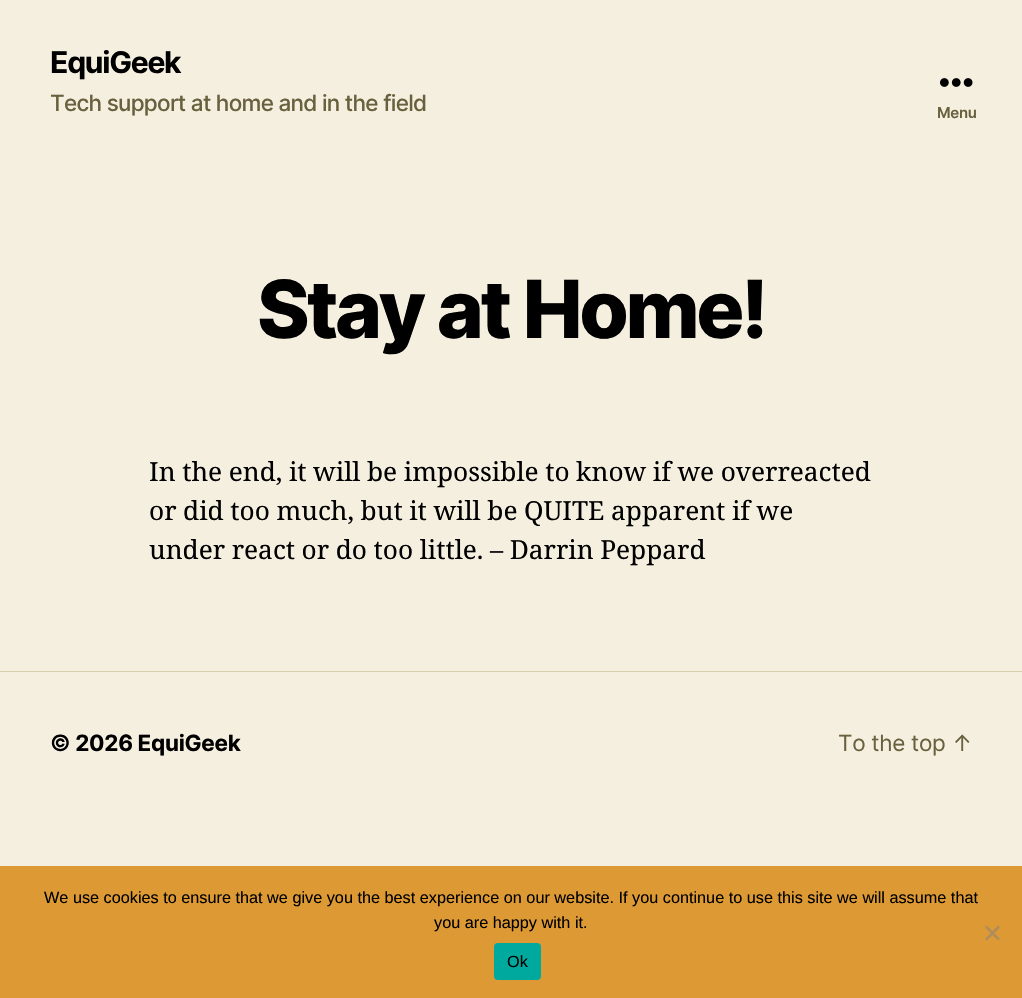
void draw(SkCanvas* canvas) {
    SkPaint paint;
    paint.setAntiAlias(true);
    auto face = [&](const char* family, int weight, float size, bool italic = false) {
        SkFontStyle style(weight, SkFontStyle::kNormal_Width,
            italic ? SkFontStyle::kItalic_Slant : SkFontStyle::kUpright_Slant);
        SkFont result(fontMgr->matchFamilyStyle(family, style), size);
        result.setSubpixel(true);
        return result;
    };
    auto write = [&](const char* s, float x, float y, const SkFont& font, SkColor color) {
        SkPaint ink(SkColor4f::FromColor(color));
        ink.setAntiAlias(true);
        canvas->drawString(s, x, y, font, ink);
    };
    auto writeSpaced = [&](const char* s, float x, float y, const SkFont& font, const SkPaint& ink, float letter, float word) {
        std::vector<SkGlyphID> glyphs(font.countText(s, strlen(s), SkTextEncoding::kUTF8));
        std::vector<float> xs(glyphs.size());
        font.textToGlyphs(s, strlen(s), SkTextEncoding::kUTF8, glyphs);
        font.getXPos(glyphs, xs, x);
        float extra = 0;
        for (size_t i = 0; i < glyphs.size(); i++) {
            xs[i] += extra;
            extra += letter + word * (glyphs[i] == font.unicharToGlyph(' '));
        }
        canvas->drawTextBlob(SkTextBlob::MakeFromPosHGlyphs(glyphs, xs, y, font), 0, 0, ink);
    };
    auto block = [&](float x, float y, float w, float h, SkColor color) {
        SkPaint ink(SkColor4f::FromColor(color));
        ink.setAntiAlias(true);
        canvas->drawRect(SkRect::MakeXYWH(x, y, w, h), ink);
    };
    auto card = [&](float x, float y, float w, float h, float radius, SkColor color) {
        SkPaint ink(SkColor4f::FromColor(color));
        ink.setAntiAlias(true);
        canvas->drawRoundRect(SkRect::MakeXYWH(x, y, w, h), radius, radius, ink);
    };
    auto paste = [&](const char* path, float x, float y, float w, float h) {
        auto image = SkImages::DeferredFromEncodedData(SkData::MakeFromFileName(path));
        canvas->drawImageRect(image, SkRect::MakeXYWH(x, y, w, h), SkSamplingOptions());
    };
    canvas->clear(SkColorSetRGB(245, 239, 224));
    auto kFont1 = face("Inter", 700, 30);
    paint.setColor(SK_ColorBLACK);
    writeSpaced("EquiGeek", 50, 73, kFont1, paint, -1.25f, 0);
    auto kFont2 = face("Inter", 500, 22.5f);
    paint.setColor(SkColorSetRGB(105, 96, 62));
    writeSpaced("Tech support at home and in the field", 50, 111, kFont2, paint, -0.7f, 0);
    paste("pic1.png", 940, 78, 33, 9);
    auto kFont3 = face("Inter", 600, 15);
    writeSpaced("Menu", 937, 118, kFont3, paint, -0.3f, 0);
    auto kFont4 = face("Inter", 800, 80);
    paint.setColor(SK_ColorBLACK);
    writeSpaced("Stay at Home!", 257, 338, kFont4, paint, -3.3f, 0);
    auto kFont5 = face("Noto Serif", 400, 26.25f);
    writeSpaced("In the end, it will be impossible to know if we overreacted", 149, 481, kFont5, paint, 0, -0.25f);
    writeSpaced("or did too much, but it will be QUITE apparent if we", 149, 520, kFont5, paint, 0, -0.25f);
    writeSpaced("under react or do too little. – Darrin Peppard", 149, 559, kFont5, paint, 0, -0.25f);
    block(0, 671, 1022, 1, SkColorSetRGB(215, 207, 171));
    auto kFont6 = face("Inter", 700, 22.5f);
    writeSpaced("© 2026 EquiGeek", 50, 751, kFont6, paint, -0.3f, 0);
    auto kFont7 = face("Inter", 400, 22.5f);
    paint.setColor(SkColorSetRGB(105, 96, 62));
    writeSpaced("To the top ↑", 838, 751, kFont7, paint, -0.3f, 0);
    block(0, 866, 1022, 132, SkColorSetRGB(221, 153, 51));
    auto kFont8 = face("Liberation Sans", 400, 16.25f);
    write("We use cookies to ensure that we give you the best experience on our website. If you continue to use this site we will assume that", 44, 903, kFont8, SK_ColorBLACK);
    write("you are happy with it.", 434, 928, kFont8, SK_ColorBLACK);
    paint.setColor(SkColorSetRGB(175, 141, 90));
    canvas->drawPath(SkPathBuilder().moveTo(998, 925.5f).lineTo(1000, 927.5f).lineTo(987, 940.5f).lineTo(985, 939).close().detach(), paint);
    canvas->drawPath(SkPathBuilder().moveTo(985, 927.5f).lineTo(987, 925.5f).lineTo(1000, 939).lineTo(998, 940.5f).close().detach(), paint);
    card(494, 943, 47, 37, 4, SkColorSetRGB(0, 169, 157));
    write("Ok", 507, 967, kFont8, SK_ColorBLACK);
}
